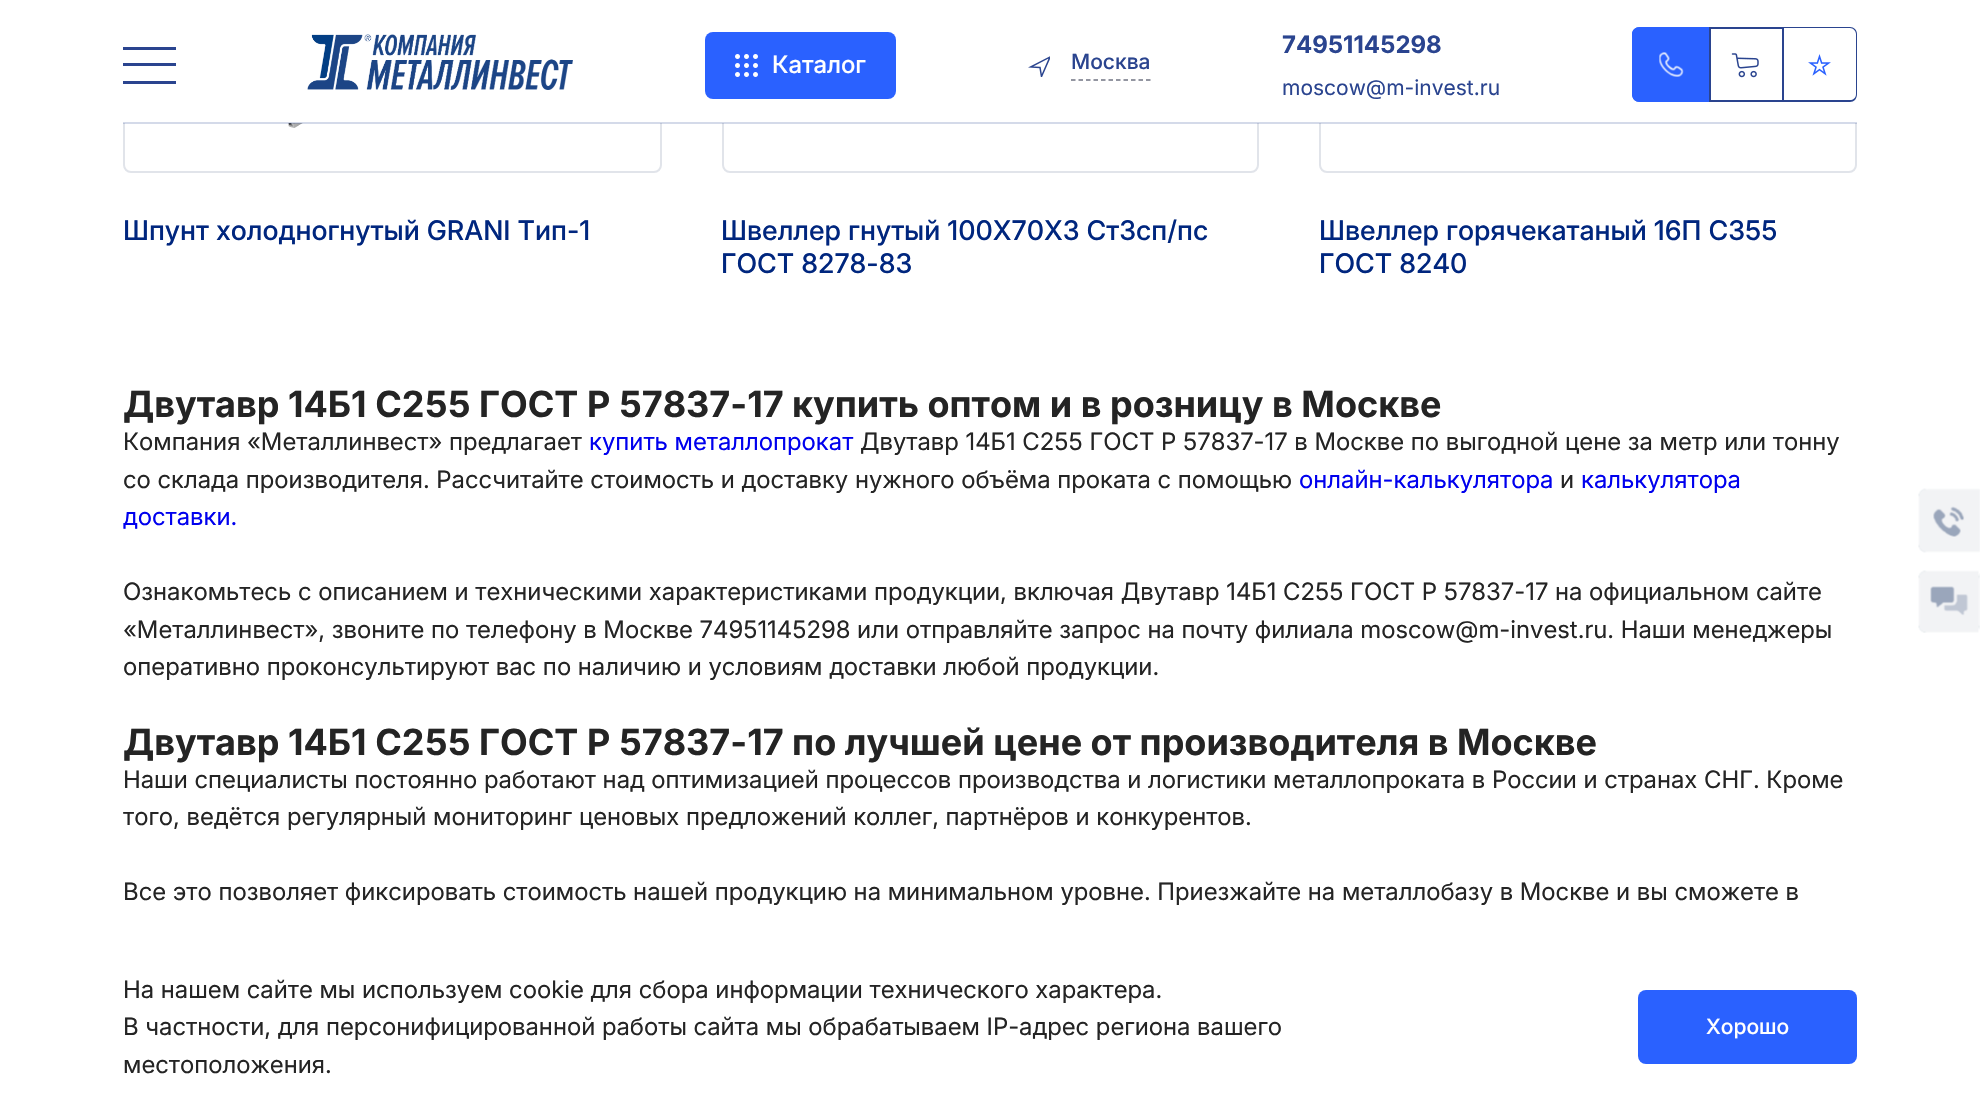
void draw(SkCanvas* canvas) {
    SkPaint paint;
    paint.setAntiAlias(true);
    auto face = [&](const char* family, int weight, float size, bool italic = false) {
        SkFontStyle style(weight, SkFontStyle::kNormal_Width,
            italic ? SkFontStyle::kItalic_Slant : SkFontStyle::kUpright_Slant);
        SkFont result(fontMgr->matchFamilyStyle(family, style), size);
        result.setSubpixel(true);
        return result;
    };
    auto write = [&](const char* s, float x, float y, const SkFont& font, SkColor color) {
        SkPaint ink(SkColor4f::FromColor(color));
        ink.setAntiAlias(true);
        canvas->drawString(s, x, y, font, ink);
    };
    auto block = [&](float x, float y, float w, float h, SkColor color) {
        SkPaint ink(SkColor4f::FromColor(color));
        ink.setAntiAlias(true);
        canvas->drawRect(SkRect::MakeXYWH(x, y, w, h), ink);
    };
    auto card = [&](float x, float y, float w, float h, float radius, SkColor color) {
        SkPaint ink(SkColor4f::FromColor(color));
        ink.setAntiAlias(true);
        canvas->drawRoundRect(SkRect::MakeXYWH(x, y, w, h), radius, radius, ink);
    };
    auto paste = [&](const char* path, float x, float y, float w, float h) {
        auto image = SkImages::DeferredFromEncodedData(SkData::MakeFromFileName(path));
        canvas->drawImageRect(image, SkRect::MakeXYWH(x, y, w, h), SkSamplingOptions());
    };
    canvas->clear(SK_ColorWHITE);
    paint.setStyle(SkPaint::kStroke_Style);
    paint.setStrokeWidth(2);
    paint.setColor(SkColorSetRGB(225, 228, 234));
    canvas->drawRoundRect(SkRect::MakeXYWH(124, -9, 537, 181), 7, 7, paint);
    canvas->drawRoundRect(SkRect::MakeXYWH(723, -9, 535, 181), 7, 7, paint);
    canvas->drawRoundRect(SkRect::MakeXYWH(1320, -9, 536, 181), 7, 7, paint);
    block(123, 0, 1734, 123, SK_ColorWHITE);
    paste("pic6.png", 288, 123, 15, 5);
    block(123, 122, 1734, 2, SkColorSetARGB(51, 42, 68, 143));
    block(123, 63, 53, 3, SkColorSetRGB(42, 68, 143));
    block(123, 47, 53, 3, SkColorSetRGB(42, 68, 143));
    block(123, 81, 53, 3, SkColorSetRGB(42, 68, 143));
    paste("pic1.png", 307, 34, 266, 56);
    card(705, 32, 191, 67, 8, SkColorSetRGB(42, 97, 255));
    paste("pic2.png", 735, 54, 23, 23);
    auto kFont1 = face("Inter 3", 500, 24);
    write("Каталог", 772, 73, kFont1, SK_ColorWHITE);
    canvas->save();
    canvas->clipRect(SkRect::MakeXYWH(1028, 54, 22, 23));
    paint.setStrokeWidth(1.5f);
    paint.setColor(SkColorSetRGB(42, 68, 143));
    canvas->drawPath(SkPathBuilder().moveTo(1040, 67.5f).lineTo(1030.5f, 67).lineTo(1050, 57).lineTo(1041.5f, 76.5f).close().detach(), paint);
    canvas->restore();
    paint.setColor(SkColorSetRGB(111, 115, 130));
    paint.setPathEffect(SkDashPathEffect::Make({{4.5f, 3}}, 0));
    canvas->drawPath(SkPathBuilder().moveTo(1071, 80).lineTo(1150.5f, 80).detach(), paint);
    paint.setPathEffect(nullptr);
    auto kFont2 = face("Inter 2", 500, 21);
    write("Москва", 1071, 69, kFont2, SkColorSetRGB(42, 68, 143));
    auto kFont3 = face("Inter", 700, 24);
    write("74951145298", 1282, 53, kFont3, SkColorSetRGB(42, 68, 143));
    auto kFont4 = face("Inter 2", 400, 21);
    write("moscow@m-invest.ru", 1282, 95, kFont4, SkColorSetRGB(42, 68, 143));
    paint.setStyle(SkPaint::kFill_Style);
    paint.setColor(SkColorSetRGB(42, 97, 255));
    canvas->drawPath(SkPathBuilder().moveTo(1640, 27).lineTo(1709, 27).lineTo(1709, 102).lineTo(1640, 102).cubicTo(1635.5f, 102, 1632, 98.5f, 1632, 94).lineTo(1632, 35).cubicTo(1632, 30.5f, 1635.5f, 27, 1640, 27).close().detach(), paint);
    canvas->drawPath(SkPathBuilder(SkPathFillType::kEvenOdd).moveTo(1640, 27).lineTo(1708, 27).lineTo(1708, 102).lineTo(1640, 102).cubicTo(1635, 102, 1632, 99, 1632, 94).lineTo(1632, 34).cubicTo(1632, 30, 1635, 27, 1640, 27).close().moveTo(1640, 28).lineTo(1708, 28).lineTo(1708, 100).lineTo(1640, 100).cubicTo(1636, 100, 1634, 98, 1634, 94).lineTo(1634, 34).cubicTo(1634, 31, 1636, 28, 1640, 28).close().detach(), paint);
    paste("pic3.png", 1659, 52, 25, 25);
    paste("pic4.png", 1731, 53, 28, 25);
    paint.setStyle(SkPaint::kStroke_Style);
    paint.setStrokeWidth(2);
    paint.setColor(SkColorSetRGB(42, 68, 143));
    canvas->drawRect(SkRect::MakeXYWH(1710, 28, 73, 73), paint);
    paste("pic5.png", 1808, 54, 23, 22);
    paint.setStyle(SkPaint::kFill_Style);
    canvas->drawPath(SkPathBuilder(SkPathFillType::kEvenOdd).moveTo(1784, 27).lineTo(1850, 27).cubicTo(1854, 27, 1857, 30, 1857, 34).lineTo(1857, 94).cubicTo(1857, 99, 1854, 102, 1850, 102).lineTo(1784, 102).close().moveTo(1784, 28).lineTo(1850, 28).cubicTo(1853, 28, 1856, 31, 1856, 34).lineTo(1856, 94).cubicTo(1856, 98, 1853, 100, 1850, 100).lineTo(1784, 100).close().detach(), paint);
    auto kFont5 = face("Inter", 500, 27);
    write("Шпунт холодногнутый GRANI Тип-1", 123, 240, kFont5, SkColorSetRGB(0, 38, 126));
    write("Швеллер гнутый 100Х70Х3 Ст3сп/пс", 721, 240, kFont5, SkColorSetRGB(0, 38, 126));
    write("ГОСТ 8278-83", 721, 273, kFont5, SkColorSetRGB(0, 38, 126));
    write("Швеллер горячекатаный 16П С355", 1319, 240, kFont5, SkColorSetRGB(0, 38, 126));
    write("ГОСТ 8240", 1319, 273, kFont5, SkColorSetRGB(0, 38, 126));
    auto kFont6 = face("Inter", 700, 36);
    write("Двутавр 14Б1 С255 ГОСТ Р 57837-17 купить оптом и в розницу в Москве", 123, 417, kFont6, SkColorSetRGB(36, 36, 36));
    auto kFont7 = face("Inter", 400, 24);
    write("Компания «Металлинвест» предлагает", 123, 450, kFont7, SkColorSetRGB(36, 36, 36));
    write("купить металлопрокат", 589, 450, kFont7, SkColorSetRGB(0, 0, 238));
    write("Двутавр 14Б1 С255 ГОСТ Р 57837-17 в Москве по выгодной цене за метр или тонну", 860, 450, kFont7, SkColorSetRGB(36, 36, 36));
    write("со склада производителя. Рассчитайте стоимость и доставку нужного объёма проката с помощью", 123, 488, kFont7, SkColorSetRGB(36, 36, 36));
    write("онлайн-калькулятора", 1299, 488, kFont7, SkColorSetRGB(0, 0, 238));
    write("и", 1560, 488, kFont7, SkColorSetRGB(36, 36, 36));
    write("калькулятора", 1581, 488, kFont7, SkColorSetRGB(0, 0, 238));
    write("доставки.", 123, 525, kFont7, SkColorSetRGB(0, 0, 238));
    write("Ознакомьтесь с описанием и техническими характеристиками продукции, включая Двутавр 14Б1 С255 ГОСТ Р 57837-17 на официальном сайте", 123, 600, kFont7, SkColorSetRGB(36, 36, 36));
    write("«Металлинвест», звоните по телефону в Москве 74951145298 или отправляйте запрос на почту филиала moscow@m-invest.ru. Наши менеджеры", 123, 638, kFont7, SkColorSetRGB(36, 36, 36));
    write("оперативно проконсультируют вас по наличию и условиям доставки любой продукции.", 123, 675, kFont7, SkColorSetRGB(36, 36, 36));
    write("Двутавр 14Б1 С255 ГОСТ Р 57837-17 по лучшей цене от производителя в Москве", 123, 755, kFont6, SkColorSetRGB(36, 36, 36));
    write("Наши специалисты постоянно работают над оптимизацией процессов производства и логистики металлопроката в России и странах СНГ. Кроме", 123, 788, kFont7, SkColorSetRGB(36, 36, 36));
    write("того, ведётся регулярный мониторинг ценовых предложений коллег, партнёров и конкурентов.", 123, 825, kFont7, SkColorSetRGB(36, 36, 36));
    write("Все это позволяет фиксировать стоимость нашей продукцию на минимальном уровне. Приезжайте на металлобазу в Москве и вы сможете в", 123, 900, kFont7, SkColorSetRGB(36, 36, 36));
    paste("pic7.png", 1918, 488, 62, 65);
    paste("pic8.png", 1918, 570, 62, 63);
    write("На нашем сайте мы используем cookie для сбора информации технического характера.", 123, 998, kFont7, SkColorSetRGB(36, 36, 36));
    write("В частности, для персонифицированной работы сайта мы обрабатываем IP-адрес региона вашего", 123, 1035, kFont7, SkColorSetRGB(36, 36, 36));
    write("местоположения.", 123, 1073, kFont7, SkColorSetRGB(36, 36, 36));
    card(1638, 990, 219, 74, 8, SkColorSetRGB(42, 97, 255));
    write("Хорошо", 1706, 1034, kFont2, SK_ColorWHITE);
}
